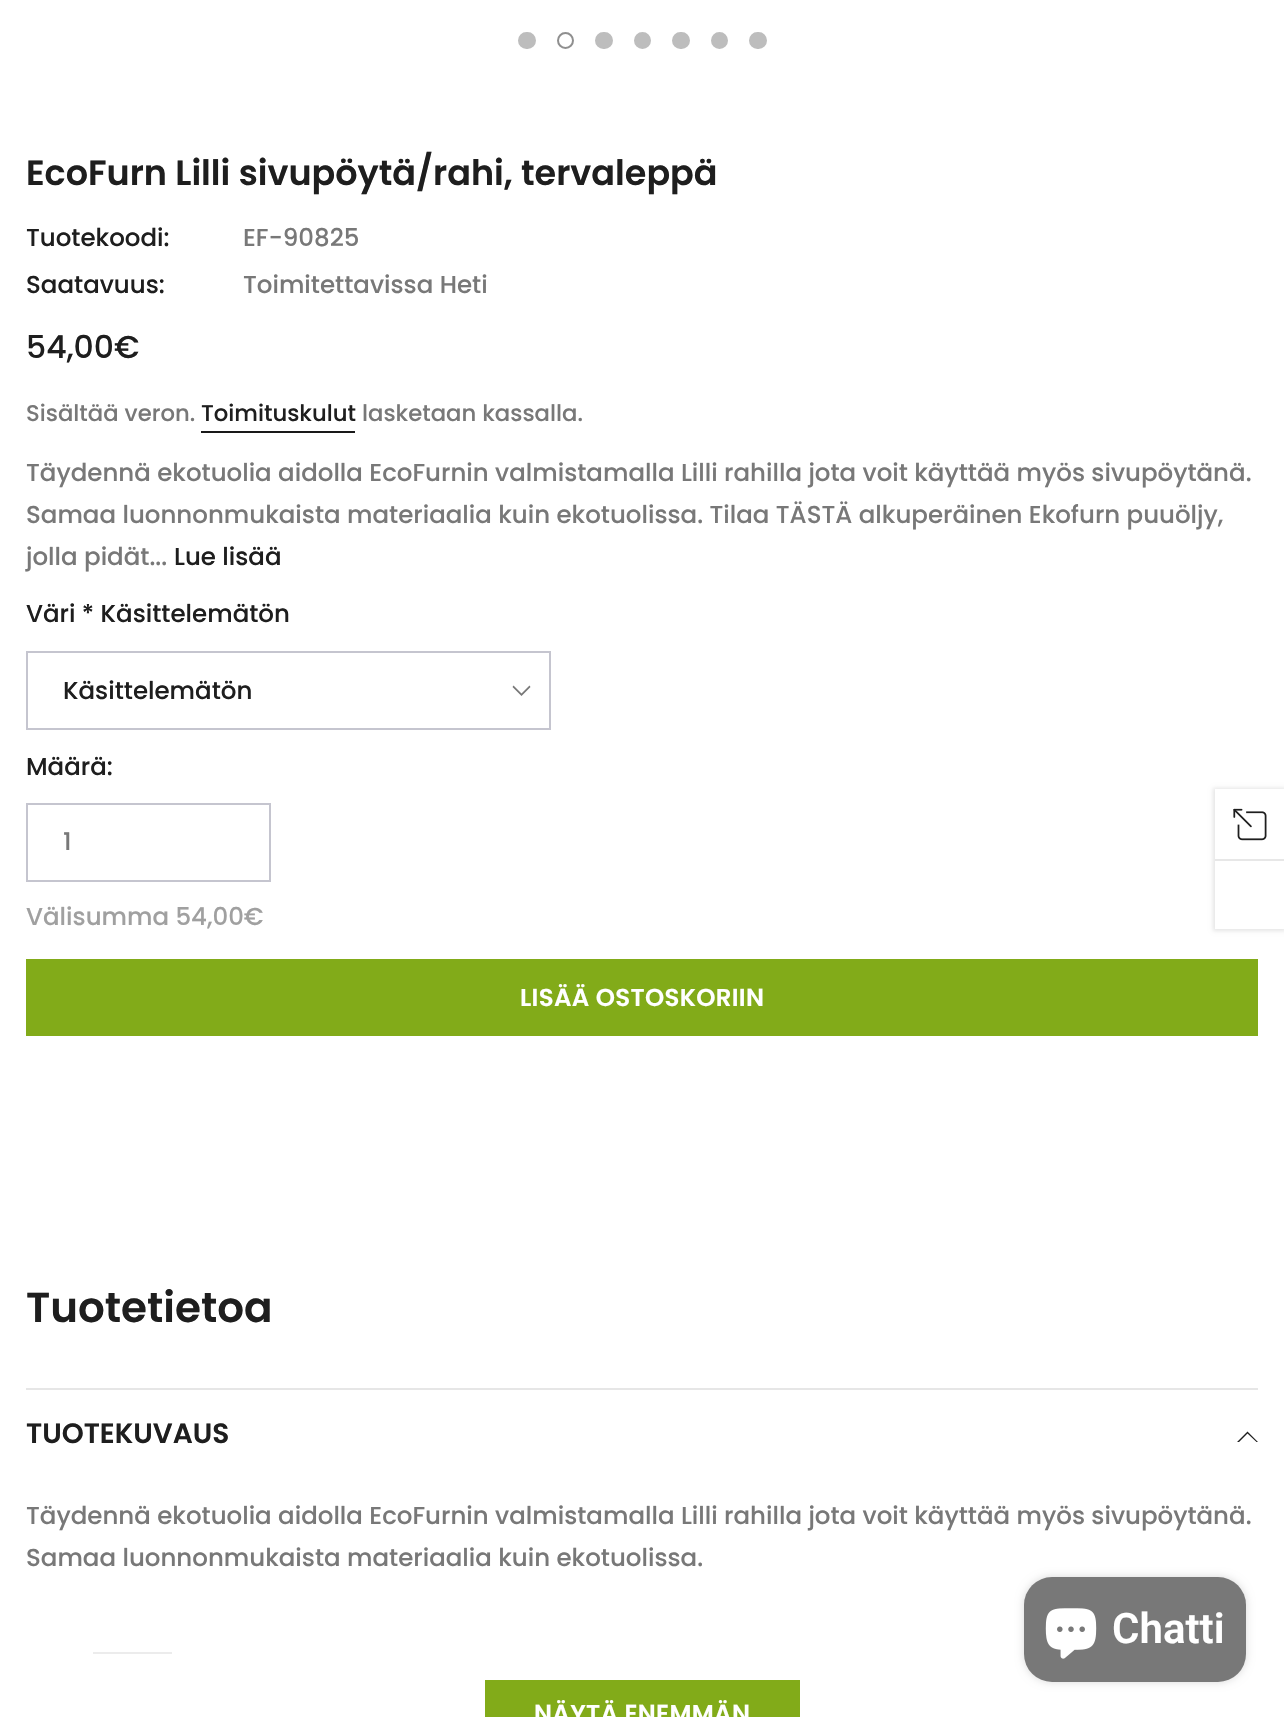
void draw(SkCanvas* canvas) {
    SkPaint paint;
    paint.setAntiAlias(true);
    auto face = [&](const char* family, int weight, float size, bool italic = false) {
        SkFontStyle style(weight, SkFontStyle::kNormal_Width,
            italic ? SkFontStyle::kItalic_Slant : SkFontStyle::kUpright_Slant);
        SkFont result(fontMgr->matchFamilyStyle(family, style), size);
        result.setSubpixel(true);
        return result;
    };
    auto write = [&](const char* s, float x, float y, const SkFont& font, SkColor color) {
        SkPaint ink(SkColor4f::FromColor(color));
        ink.setAntiAlias(true);
        canvas->drawString(s, x, y, font, ink);
    };
    auto writeSpaced = [&](const char* s, float x, float y, const SkFont& font, const SkPaint& ink, float letter, float word) {
        std::vector<SkGlyphID> glyphs(font.countText(s, strlen(s), SkTextEncoding::kUTF8));
        std::vector<float> xs(glyphs.size());
        font.textToGlyphs(s, strlen(s), SkTextEncoding::kUTF8, glyphs);
        font.getXPos(glyphs, xs, x);
        float extra = 0;
        for (size_t i = 0; i < glyphs.size(); i++) {
            xs[i] += extra;
            extra += letter + word * (glyphs[i] == font.unicharToGlyph(' '));
        }
        canvas->drawTextBlob(SkTextBlob::MakeFromPosHGlyphs(glyphs, xs, y, font), 0, 0, ink);
    };
    auto block = [&](float x, float y, float w, float h, SkColor color) {
        SkPaint ink(SkColor4f::FromColor(color));
        ink.setAntiAlias(true);
        canvas->drawRect(SkRect::MakeXYWH(x, y, w, h), ink);
    };
    auto card = [&](float x, float y, float w, float h, float radius, SkColor color) {
        SkPaint ink(SkColor4f::FromColor(color));
        ink.setAntiAlias(true);
        canvas->drawRoundRect(SkRect::MakeXYWH(x, y, w, h), radius, radius, ink);
    };
    auto paste = [&](const char* path, float x, float y, float w, float h) {
        auto image = SkImages::DeferredFromEncodedData(SkData::MakeFromFileName(path));
        canvas->drawImageRect(image, SkRect::MakeXYWH(x, y, w, h), SkSamplingOptions());
    };
    canvas->clear(SK_ColorWHITE);
    paint.setColor(SkColorSetRGB(189, 189, 189));
    canvas->drawRoundRect(SkRect::MakeXYWH(519, 33, 16, 15), 7.5f, 7.5f, paint);
    paint.setStyle(SkPaint::kStroke_Style);
    paint.setStrokeWidth(2);
    canvas->drawRoundRect(SkRect::MakeXYWH(519, 33, 16, 15), 7.5f, 7.5f, paint);
    paint.setColor(SkColorSetRGB(143, 143, 143));
    canvas->drawCircle(565.5f, 40.5f, 7.5f, paint);
    paint.setStyle(SkPaint::kFill_Style);
    paint.setColor(SkColorSetRGB(189, 189, 189));
    canvas->drawRoundRect(SkRect::MakeXYWH(596, 33, 16, 15), 7.5f, 7.5f, paint);
    paint.setStyle(SkPaint::kStroke_Style);
    canvas->drawRoundRect(SkRect::MakeXYWH(596, 33, 16, 15), 7.5f, 7.5f, paint);
    paint.setStyle(SkPaint::kFill_Style);
    canvas->drawCircle(642.5f, 40.5f, 7.5f, paint);
    paint.setStyle(SkPaint::kStroke_Style);
    canvas->drawCircle(642.5f, 40.5f, 7.5f, paint);
    paint.setStyle(SkPaint::kFill_Style);
    canvas->drawRoundRect(SkRect::MakeXYWH(673, 33, 16, 15), 7.5f, 7.5f, paint);
    paint.setStyle(SkPaint::kStroke_Style);
    canvas->drawRoundRect(SkRect::MakeXYWH(673, 33, 16, 15), 7.5f, 7.5f, paint);
    paint.setStyle(SkPaint::kFill_Style);
    canvas->drawCircle(719.5f, 40.5f, 7.5f, paint);
    paint.setStyle(SkPaint::kStroke_Style);
    canvas->drawCircle(719.5f, 40.5f, 7.5f, paint);
    paint.setStyle(SkPaint::kFill_Style);
    canvas->drawRoundRect(SkRect::MakeXYWH(750, 33, 16, 15), 7.5f, 7.5f, paint);
    paint.setStyle(SkPaint::kStroke_Style);
    canvas->drawRoundRect(SkRect::MakeXYWH(750, 33, 16, 15), 7.5f, 7.5f, paint);
    auto kFont1 = face("Poppins", 600, 35);
    write("EcoFurn Lilli sivupöytä/rahi, tervaleppä", 26, 185, kFont1, SkColorSetRGB(30, 30, 30));
    auto kFont2 = face("Poppins", 500, 24.5f);
    write("Tuotekoodi:", 26, 246, kFont2, SkColorSetRGB(30, 30, 30));
    write("EF-90825", 243, 246, kFont2, SkColorSetRGB(120, 120, 120));
    write("Saatavuus:", 26, 293, kFont2, SkColorSetRGB(30, 30, 30));
    write("Toimitettavissa Heti", 243, 293, kFont2, SkColorSetRGB(120, 120, 120));
    auto kFont3 = face("Poppins", 500, 31.5f);
    write("54,00€", 26, 358, kFont3, SkColorSetRGB(30, 30, 30));
    auto kFont4 = face("Poppins", 500, 22.75f);
    write("Sisältää veron.", 26, 421, kFont4, SkColorSetRGB(120, 120, 120));
    write("Toimituskulut", 201, 421, kFont4, SkColorSetRGB(30, 30, 30));
    block(201, 431, 154, 2, SkColorSetRGB(25, 25, 25));
    write("lasketaan kassalla.", 362, 421, kFont4, SkColorSetRGB(120, 120, 120));
    write("Täydennä ekotuolia aidolla EcoFurnin valmistamalla Lilli rahilla jota voit käyttää myös sivupöytänä.", 26, 481, kFont2, SkColorSetRGB(120, 120, 120));
    write("Samaa luonnonmukaista materiaalia kuin ekotuolissa. Tilaa TÄSTÄ alkuperäinen Ekofurn puuöljy,", 26, 523, kFont2, SkColorSetRGB(120, 120, 120));
    write("jolla pidät...", 26, 565, kFont2, SkColorSetRGB(120, 120, 120));
    write("Lue lisää", 174, 565, kFont2, SkColorSetRGB(30, 30, 30));
    write("Väri * Käsittelemätön", 26, 622, kFont2, SkColorSetRGB(30, 30, 30));
    paint.setStyle(SkPaint::kFill_Style);
    paint.setColor(SkColorSetRGB(120, 120, 120));
    canvas->drawPath(SkPathBuilder().moveTo(521.5f, 696).lineTo(512.5f, 687).lineTo(513.5f, 685.5f).lineTo(521.5f, 693.5f).lineTo(529.5f, 685.5f).lineTo(530.5f, 687).close().detach(), paint);
    paint.setStyle(SkPaint::kStroke_Style);
    paint.setColor(SkColorSetRGB(197, 197, 207));
    canvas->drawRect(SkRect::MakeXYWH(27, 652, 523, 77), paint);
    write("Käsittelemätön", 63, 699, kFont2, SkColorSetRGB(30, 30, 30));
    write("Määrä:", 26, 775, kFont2, SkColorSetRGB(30, 30, 30));
    canvas->drawRect(SkRect::MakeXYWH(27, 804, 243, 77), paint);
    write("1", 63, 850, kFont2, SkColorSetRGB(120, 120, 120));
    write("Välisumma 54,00€", 26, 925, kFont2, SkColorSetRGB(160, 160, 160));
    block(26, 959, 1232, 77, SkColorSetRGB(130, 171, 25));
    auto kFont5 = face("Poppins", 600, 24.5f);
    paint.setStyle(SkPaint::kFill_Style);
    paint.setColor(SK_ColorWHITE);
    writeSpaced("LISÄÄ OSTOSKORIIN", 520, 1006, kFont5, paint, 0.3f, 0);
    auto kFont6 = face("Poppins", 600, 42);
    write("Tuotetietoa", 26, 1322, kFont6, SkColorSetRGB(30, 30, 30));
    block(26, 1388, 1232, 2, SkColorSetRGB(230, 230, 230));
    auto kFont7 = face("Poppins", 600, 28);
    write("TUOTEKUVAUS", 26, 1443, kFont7, SkColorSetRGB(30, 30, 30));
    paint.setColor(SkColorSetRGB(30, 30, 30));
    canvas->drawPath(SkPathBuilder().moveTo(1247.5f, 1433.5f).lineTo(1256.5f, 1442).lineTo(1258, 1442).lineTo(1247.5f, 1431.5f).lineTo(1237, 1442).lineTo(1239, 1442).close().detach(), paint);
    write("Täydennä ekotuolia aidolla EcoFurnin valmistamalla Lilli rahilla jota voit käyttää myös sivupöytänä.", 26, 1524, kFont2, SkColorSetRGB(120, 120, 120));
    write("Samaa luonnonmukaista materiaalia kuin ekotuolissa.", 26, 1566, kFont2, SkColorSetRGB(120, 120, 120));
    block(93, 1652, 79, 2, SkColorSetRGB(25, 25, 25));
    {
        const SkColor colors[] = {SkColorSetARGB(0, 255, 255, 255), SkColorSetARGB(204, 255, 255, 255), SkColorSetARGB(230, 255, 255, 255), SkColorSetARGB(245, 255, 255, 255), SK_ColorWHITE};
        const float stops[] = {0, 0.12f, 0.34f, 0.57f, 0.73f};
        const SkPoint ends[] = {{642, 1593}, {642, 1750}};
        paint.setShader(SkGradientShader::MakeLinear(ends, colors, stops, 5, SkTileMode::kClamp));
        paint.setAlpha(255);
    }
    canvas->drawRect(SkRect::MakeXYWH(93, 1652, 79, 2), paint);
    block(485, 1680, 315, 37, SkColorSetRGB(130, 171, 25));
    paint.setShader(nullptr);
    paint.setColor(SK_ColorWHITE);
    writeSpaced("NÄYTÄ ENEMMÄN", 534, 1722, kFont5, paint, 0.3f, 0);
    paint.setColor(SkColorSetARGB(26, 0, 0, 0));
    paint.setMaskFilter(SkMaskFilter::MakeBlur(kNormal_SkBlurStyle, 2));
    canvas->drawRect(SkRect::MakeXYWH(1213, 788, 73, 143), paint);
    paint.setMaskFilter(nullptr);
    block(1215, 789, 69, 140, SK_ColorWHITE);
    paste("pic1.png", 1233, 808, 34, 33);
    block(1215, 859, 69, 2, SkColorSetRGB(231, 231, 231));
    paint.setColor(SkColorSetARGB(38, 0, 0, 0));
    paint.setMaskFilter(SkMaskFilter::MakeBlur(kNormal_SkBlurStyle, 4.5f));
    canvas->drawRoundRect(SkRect::MakeXYWH(1024, 1577, 222, 105), 28, 28, paint);
    paint.setMaskFilter(nullptr);
    card(1024, 1577, 222, 105, 28, SkColorSetRGB(120, 120, 120));
    paste("pic2.png", 1045, 1608, 52, 51);
    auto kFont8 = face("Roboto", 600, 42);
    write("Chatti", 1112, 1643, kFont8, SK_ColorWHITE);
}
